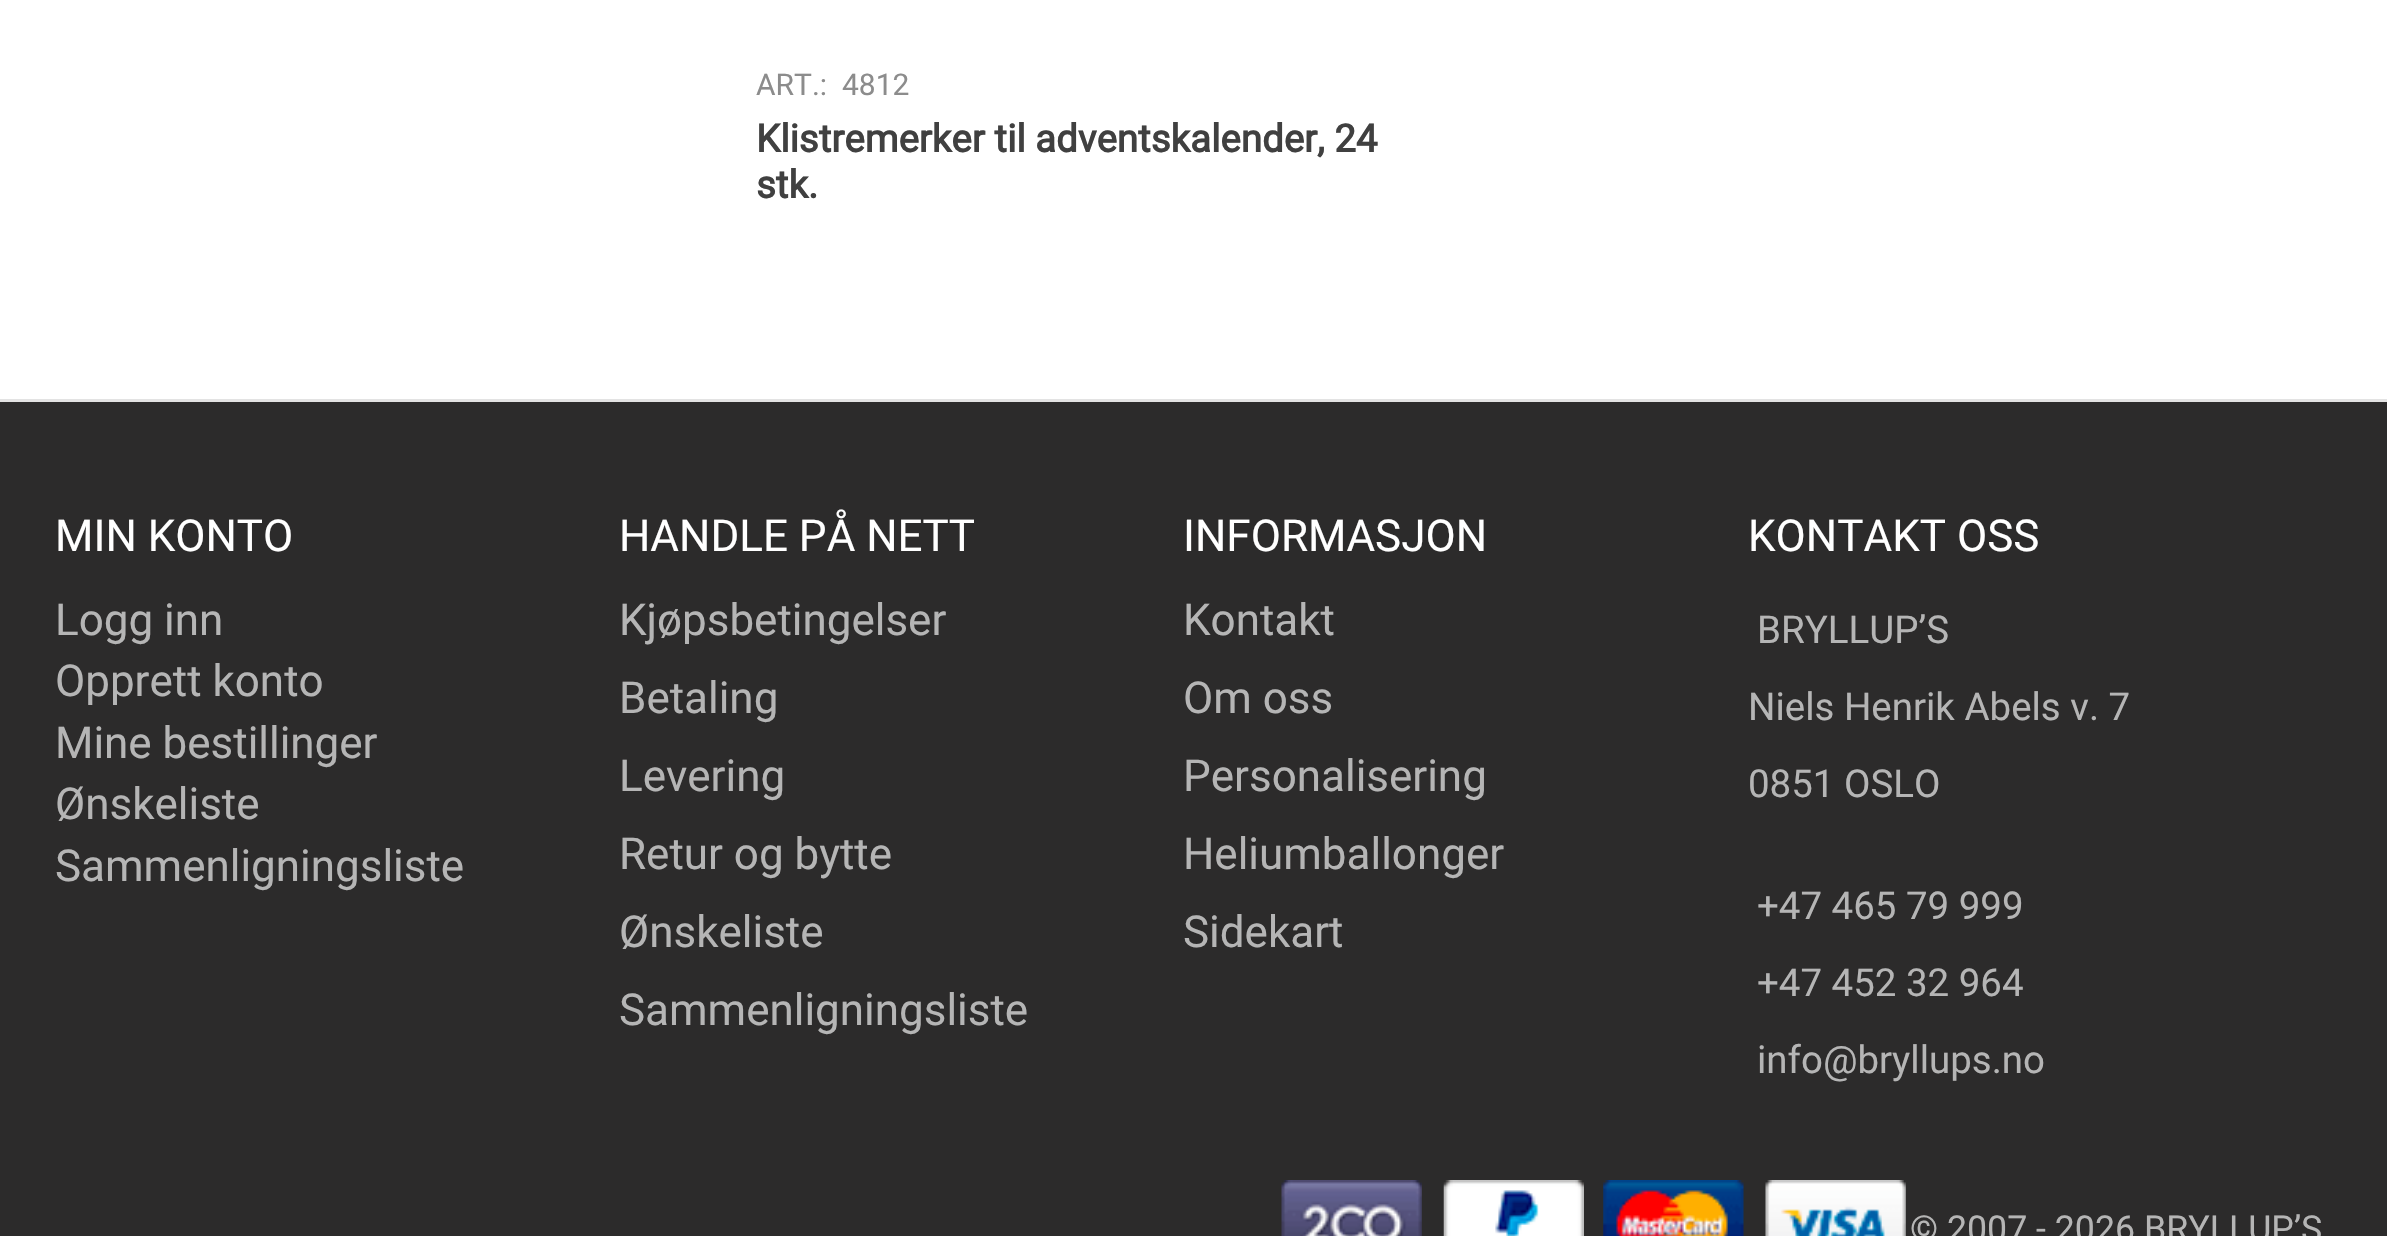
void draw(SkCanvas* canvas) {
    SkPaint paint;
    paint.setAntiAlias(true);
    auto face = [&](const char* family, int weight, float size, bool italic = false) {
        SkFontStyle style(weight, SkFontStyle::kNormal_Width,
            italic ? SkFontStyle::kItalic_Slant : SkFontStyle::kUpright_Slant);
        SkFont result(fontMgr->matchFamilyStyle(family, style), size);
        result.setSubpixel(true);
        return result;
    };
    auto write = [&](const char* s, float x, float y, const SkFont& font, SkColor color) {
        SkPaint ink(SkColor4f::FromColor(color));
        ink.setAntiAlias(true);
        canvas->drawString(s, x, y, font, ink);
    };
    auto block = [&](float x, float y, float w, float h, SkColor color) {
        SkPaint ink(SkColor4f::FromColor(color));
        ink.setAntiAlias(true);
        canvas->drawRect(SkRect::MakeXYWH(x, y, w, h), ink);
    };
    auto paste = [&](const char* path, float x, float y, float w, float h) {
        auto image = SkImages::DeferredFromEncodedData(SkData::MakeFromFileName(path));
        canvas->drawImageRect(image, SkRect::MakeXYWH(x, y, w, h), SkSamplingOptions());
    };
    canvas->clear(SK_ColorWHITE);
    auto kFont1 = face("Roboto", 400, 30);
    write("ART.:", 756, 95, kFont1, SkColorSetRGB(140, 140, 140));
    write("4812", 842, 95, kFont1, SkColorSetRGB(140, 140, 140));
    auto kFont2 = face("Roboto", 700, 38.5f);
    write("Klistremerker til adventskalender, 24", 756, 152, kFont2, SkColorSetRGB(64, 64, 64));
    write("stk.", 756, 198, kFont2, SkColorSetRGB(64, 64, 64));
    block(0, 402, 2387, 834, SkColorSetRGB(44, 43, 43));
    block(0, 399, 2387, 3, SkColorSetRGB(227, 227, 227));
    auto kFont3 = face("Roboto", 400, 44);
    write("MIN KONTO", 55, 551, kFont3, SK_ColorWHITE);
    write("Logg inn", 55, 635, kFont3, SkColorSetRGB(181, 181, 181));
    write("Opprett konto", 55, 696, kFont3, SkColorSetRGB(181, 181, 181));
    write("Mine bestillinger", 55, 758, kFont3, SkColorSetRGB(181, 181, 181));
    write("Ønskeliste", 55, 819, kFont3, SkColorSetRGB(181, 181, 181));
    write("Sammenligningsliste", 55, 881, kFont3, SkColorSetRGB(181, 181, 181));
    write("HANDLE PÅ NETT", 619, 551, kFont3, SK_ColorWHITE);
    write("Kjøpsbetingelser", 619, 635, kFont3, SkColorSetRGB(181, 181, 181));
    write("Betaling", 619, 713, kFont3, SkColorSetRGB(181, 181, 181));
    write("Levering", 619, 791, kFont3, SkColorSetRGB(181, 181, 181));
    write("Retur og bytte", 619, 869, kFont3, SkColorSetRGB(181, 181, 181));
    write("Ønskeliste", 619, 947, kFont3, SkColorSetRGB(181, 181, 181));
    write("Sammenligningsliste", 619, 1025, kFont3, SkColorSetRGB(181, 181, 181));
    write("INFORMASJON", 1183, 551, kFont3, SK_ColorWHITE);
    write("Kontakt", 1183, 635, kFont3, SkColorSetRGB(181, 181, 181));
    write("Om oss", 1183, 713, kFont3, SkColorSetRGB(181, 181, 181));
    write("Personalisering", 1183, 791, kFont3, SkColorSetRGB(181, 181, 181));
    write("Heliumballonger", 1183, 869, kFont3, SkColorSetRGB(181, 181, 181));
    write("Sidekart", 1183, 947, kFont3, SkColorSetRGB(181, 181, 181));
    write("KONTAKT OSS", 1748, 551, kFont3, SK_ColorWHITE);
    auto kFont4 = face("Roboto", 400, 38.5f);
    write("BRYLLUP’S", 1757, 643, kFont4, SkColorSetRGB(181, 181, 181));
    write("Niels Henrik Abels v. 7", 1748, 720, kFont4, SkColorSetRGB(181, 181, 181));
    write("0851 OSLO", 1748, 797, kFont4, SkColorSetRGB(181, 181, 181));
    write("+47 465 79 999", 1757, 919, kFont4, SkColorSetRGB(181, 181, 181));
    write("+47 452 32 964", 1757, 996, kFont4, SkColorSetRGB(181, 181, 181));
    write("info@bryllups.no", 1757, 1073, kFont4, SkColorSetRGB(181, 181, 181));
    paste("pic1.png", 1281, 1180, 141, 56);
    paste("pic2.png", 1443, 1180, 141, 56);
    paste("pic3.png", 1603, 1180, 141, 56);
    paste("pic4.png", 1765, 1180, 141, 56);
    auto kFont5 = face("Roboto", 400, 35.75f);
    write("© 2007 - 2026 BRYLLUP’S", 1910, 1241, kFont5, SkColorSetRGB(181, 181, 181));
}
